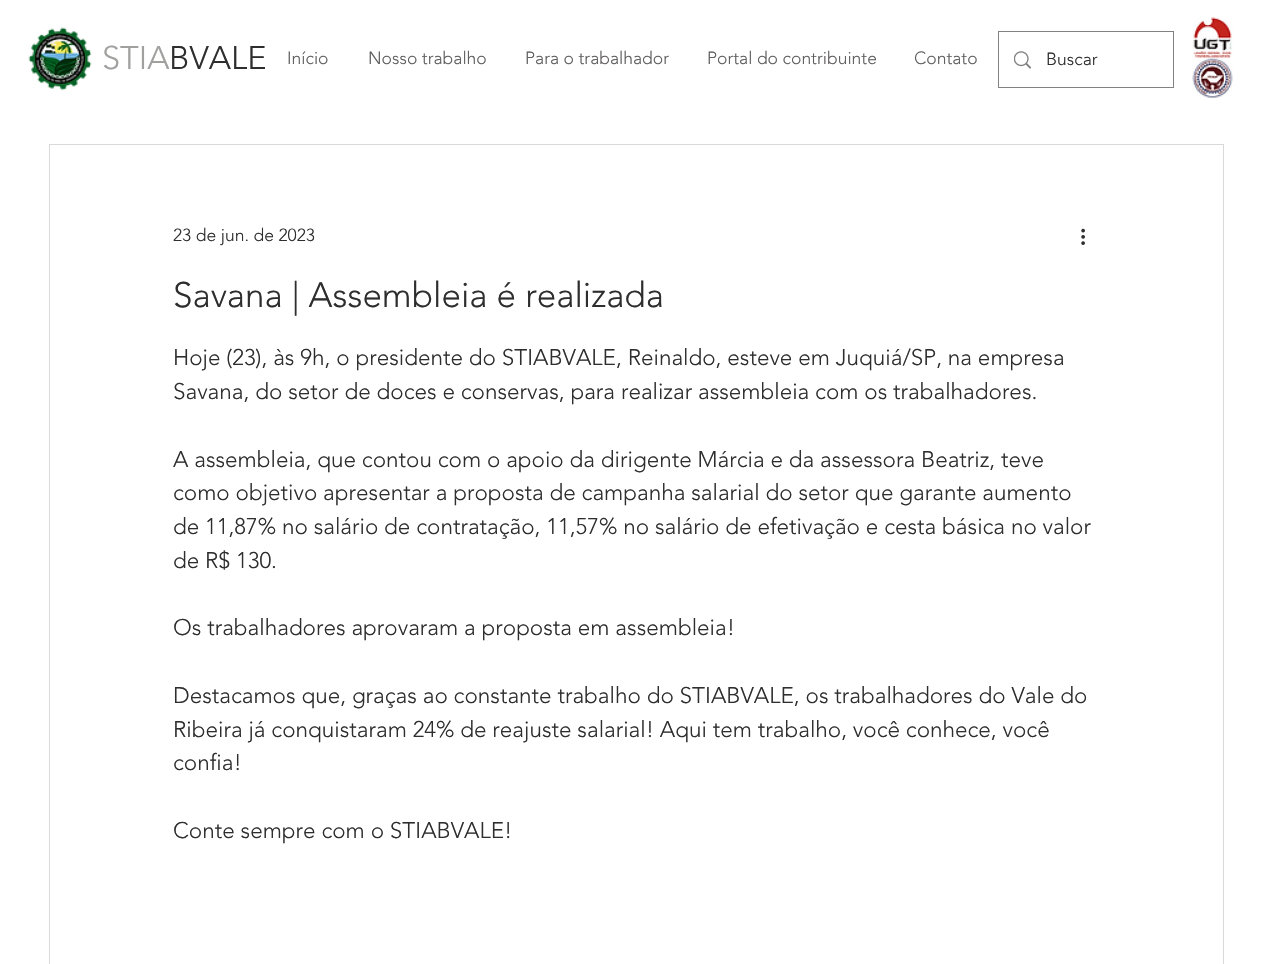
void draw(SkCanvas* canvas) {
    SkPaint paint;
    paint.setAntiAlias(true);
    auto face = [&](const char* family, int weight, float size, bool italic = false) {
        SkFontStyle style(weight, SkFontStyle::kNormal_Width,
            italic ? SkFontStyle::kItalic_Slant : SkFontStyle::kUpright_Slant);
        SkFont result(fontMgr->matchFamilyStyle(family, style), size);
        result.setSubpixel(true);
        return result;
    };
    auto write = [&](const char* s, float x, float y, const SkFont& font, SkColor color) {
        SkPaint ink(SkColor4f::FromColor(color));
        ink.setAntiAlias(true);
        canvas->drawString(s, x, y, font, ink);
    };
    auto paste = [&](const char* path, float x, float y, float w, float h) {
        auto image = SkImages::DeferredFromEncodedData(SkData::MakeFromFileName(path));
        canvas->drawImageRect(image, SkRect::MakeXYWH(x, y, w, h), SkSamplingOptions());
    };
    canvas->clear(SK_ColorWHITE);
    paste("pic1.png", 28, 27, 64, 64);
    auto kFont1 = face("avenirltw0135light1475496", 300, 32.5f);
    write("STIA", 102, 69, kFont1, SkColorSetRGB(160, 160, 159));
    write("BVALE", 169, 69, kFont1, SkColorSetRGB(47, 46, 46));
    auto kFont2 = face("avenirltw0135light1475496", 300, 17.5f);
    write("Início", 287, 64, kFont2, SkColorSetRGB(96, 94, 94));
    write("Nosso trabalho", 368, 64, kFont2, SkColorSetRGB(96, 94, 94));
    write("Para o trabalhador", 525, 64, kFont2, SkColorSetRGB(96, 94, 94));
    write("Portal do contribuinte", 707, 64, kFont2, SkColorSetRGB(96, 94, 94));
    write("Contato", 914, 64, kFont2, SkColorSetRGB(96, 94, 94));
    paint.setStyle(SkPaint::kStroke_Style);
    paint.setStrokeWidth(1);
    paint.setColor(SkColorSetRGB(130, 130, 130));
    canvas->drawRect(SkRect::MakeXYWH(998.5f, 31.5f, 175, 56), paint);
    paste("pic2.png", 1014, 51, 17, 18);
    write("Buscar", 1046, 65, kFont2, SkColorSetRGB(47, 46, 46));
    paste("pic3.png", 1192, 17, 41, 81);
    paint.setColor(SkColorSetRGB(217, 217, 217));
    canvas->drawRect(SkRect::MakeXYWH(49.5f, 144.5f, 1174, 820), paint);
    write("23 de jun. de 2023", 173, 241, kFont2, SkColorSetRGB(47, 46, 46));
    paste("pic4.png", 1081, 228, 4, 17);
    auto kFont3 = face("avenirltw0135light1475496", 300, 35);
    write("Savana | Assembleia é realizada", 173, 307, kFont3, SkColorSetRGB(47, 46, 46));
    auto kFont4 = face("avenirltw0135light1475496", 300, 22.5f);
    write("Hoje (23), às 9h, o presidente do STIABVALE, Reinaldo, esteve em Juquiá/SP, na empresa", 173, 365, kFont4, SkColorSetRGB(47, 46, 46));
    write("Savana, do setor de doces e conservas, para realizar assembleia com os trabalhadores.", 173, 399, kFont4, SkColorSetRGB(47, 46, 46));
    write("A assembleia, que contou com o apoio da dirigente Márcia e da assessora Beatriz, teve", 173, 467, kFont4, SkColorSetRGB(47, 46, 46));
    write("como objetivo apresentar a proposta de campanha salarial do setor que garante aumento", 173, 500, kFont4, SkColorSetRGB(47, 46, 46));
    write("de 11,87% no salário de contratação, 11,57% no salário de efetivação e cesta básica no valor", 173, 534, kFont4, SkColorSetRGB(47, 46, 46));
    write("de R$ 130.", 173, 568, kFont4, SkColorSetRGB(47, 46, 46));
    write("Os trabalhadores aprovaram a proposta em assembleia!", 173, 635, kFont4, SkColorSetRGB(47, 46, 46));
    write("Destacamos que, graças ao constante trabalho do STIABVALE, os trabalhadores do Vale do", 173, 703, kFont4, SkColorSetRGB(47, 46, 46));
    write("Ribeira já conquistaram 24% de reajuste salarial! Aqui tem trabalho, você conhece, você", 173, 737, kFont4, SkColorSetRGB(47, 46, 46));
    write("confia!", 173, 770, kFont4, SkColorSetRGB(47, 46, 46));
    write("Conte sempre com o STIABVALE!", 173, 838, kFont4, SkColorSetRGB(47, 46, 46));
}
